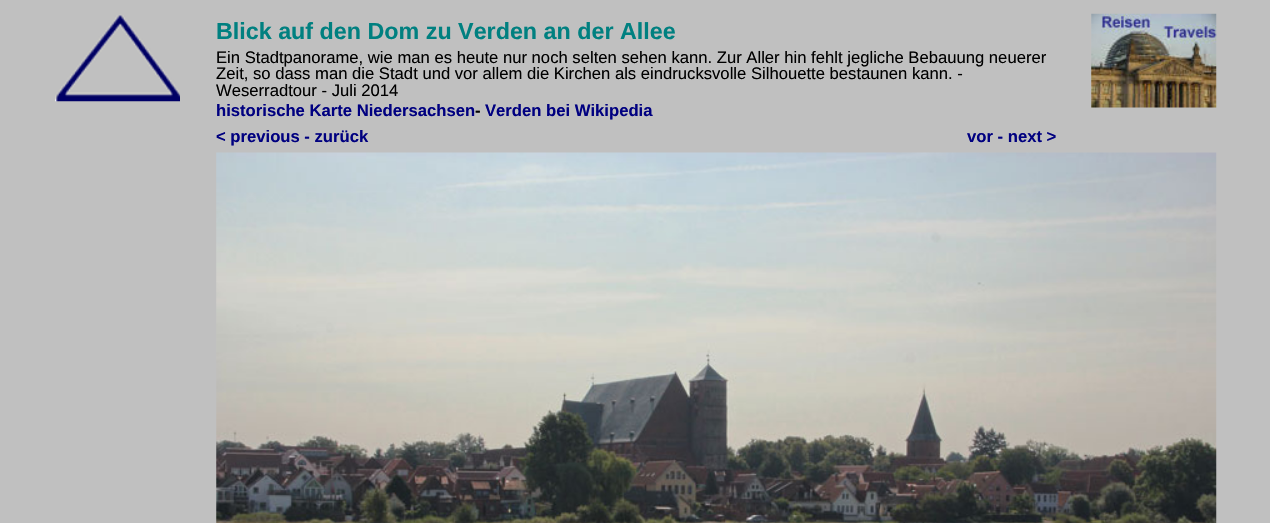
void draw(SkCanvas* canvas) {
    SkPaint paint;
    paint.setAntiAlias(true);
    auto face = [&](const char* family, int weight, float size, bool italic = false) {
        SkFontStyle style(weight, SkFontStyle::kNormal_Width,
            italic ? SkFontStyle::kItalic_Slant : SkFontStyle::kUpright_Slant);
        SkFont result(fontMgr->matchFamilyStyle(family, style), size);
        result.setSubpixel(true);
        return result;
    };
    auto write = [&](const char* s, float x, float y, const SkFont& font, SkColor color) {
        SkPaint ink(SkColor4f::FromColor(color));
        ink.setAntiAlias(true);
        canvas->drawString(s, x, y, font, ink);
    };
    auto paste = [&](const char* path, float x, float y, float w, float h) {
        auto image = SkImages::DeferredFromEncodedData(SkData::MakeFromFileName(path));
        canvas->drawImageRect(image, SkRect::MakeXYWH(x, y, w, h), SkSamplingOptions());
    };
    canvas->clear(SkColorSetRGB(192, 192, 192));
    paste("pic1.png", 55, 15, 125, 87);
    auto kFont1 = face("Liberation Sans", 700, 23.3f);
    write("Blick auf den Dom zu Verden an der Allee", 216, 39, kFont1, SkColorSetRGB(0, 128, 128));
    auto kFont2 = face("Liberation Sans", 400, 16.65f);
    write("Ein Stadtpanorame, wie man es heute nur noch selten sehen kann. Zur Aller hin fehlt jegliche Bebauung neuerer", 216, 63, kFont2, SK_ColorBLACK);
    write("Zeit, so dass man die Stadt und vor allem die Kirchen als eindrucksvolle Silhouette bestaunen kann. -", 216, 79, kFont2, SK_ColorBLACK);
    write("Weserradtour - Juli 2014", 216, 96, kFont2, SK_ColorBLACK);
    auto kFont3 = face("Liberation Sans", 700, 16.65f);
    write("historische Karte Niedersachsen", 216, 116, kFont3, SkColorSetRGB(0, 0, 128));
    write("-", 475, 116, kFont3, SK_ColorBLACK);
    write("Verden bei Wikipedia", 485, 116, kFont3, SkColorSetRGB(0, 0, 128));
    paste("pic2.png", 1091, 13, 126, 95);
    write("< previous - zurück", 216, 142, kFont3, SkColorSetRGB(0, 0, 128));
    write("vor - next >", 967, 142, kFont3, SkColorSetRGB(0, 0, 128));
    paste("pic3.png", 216, 152, 1001, 371);
}
